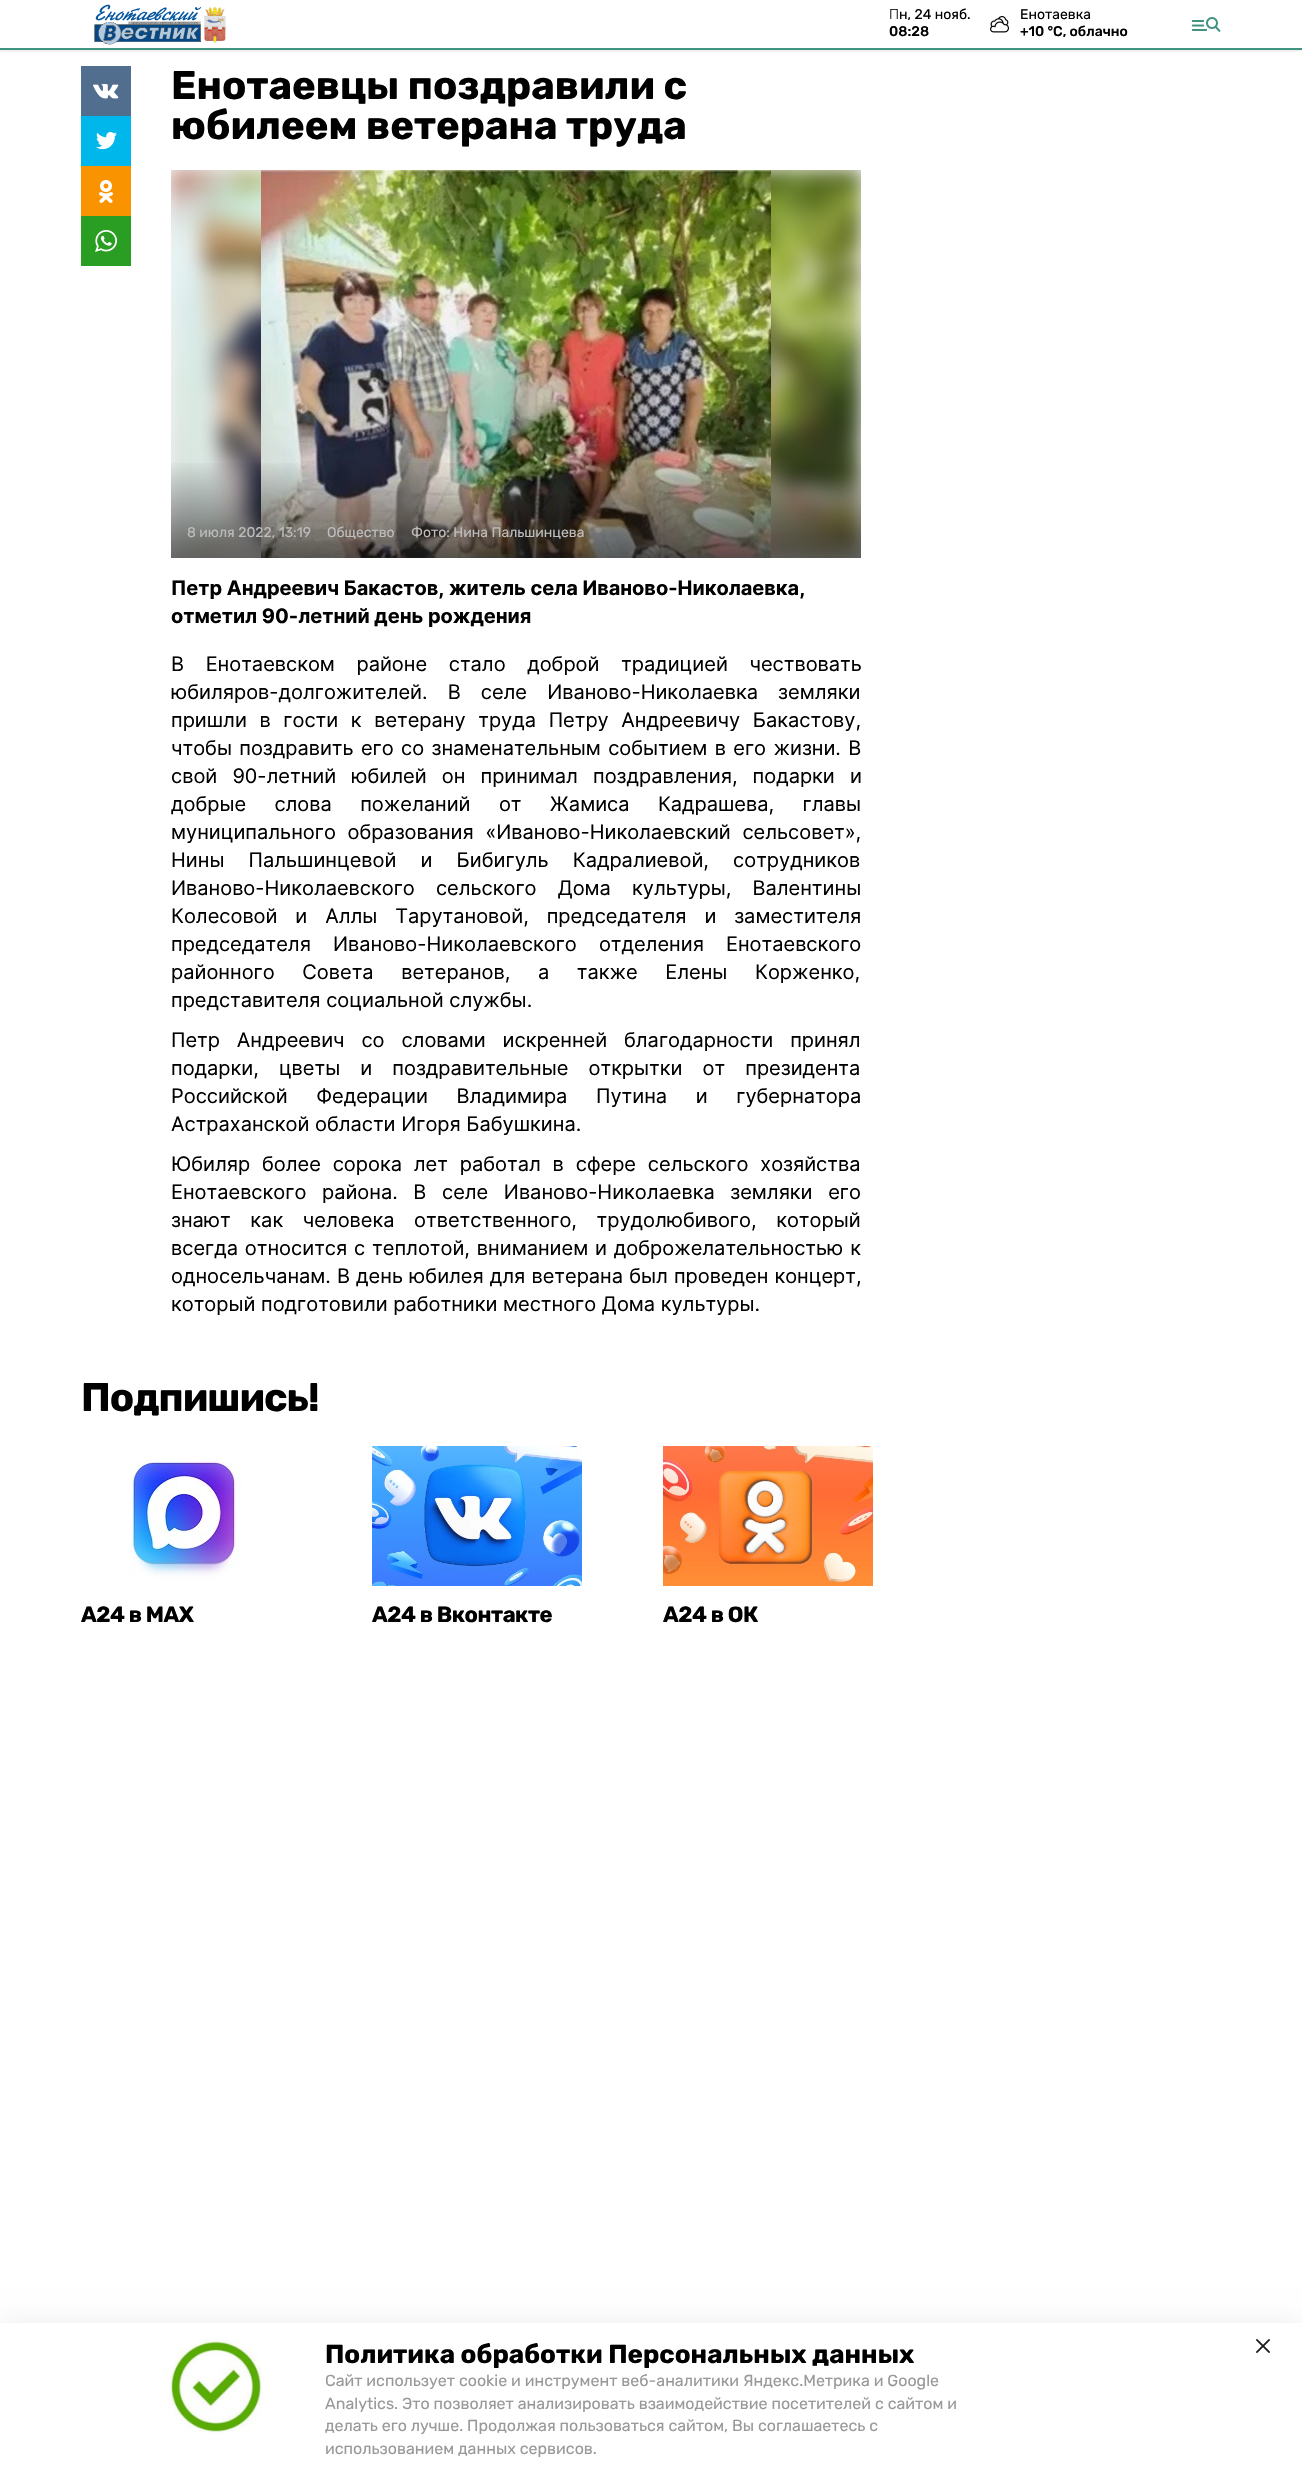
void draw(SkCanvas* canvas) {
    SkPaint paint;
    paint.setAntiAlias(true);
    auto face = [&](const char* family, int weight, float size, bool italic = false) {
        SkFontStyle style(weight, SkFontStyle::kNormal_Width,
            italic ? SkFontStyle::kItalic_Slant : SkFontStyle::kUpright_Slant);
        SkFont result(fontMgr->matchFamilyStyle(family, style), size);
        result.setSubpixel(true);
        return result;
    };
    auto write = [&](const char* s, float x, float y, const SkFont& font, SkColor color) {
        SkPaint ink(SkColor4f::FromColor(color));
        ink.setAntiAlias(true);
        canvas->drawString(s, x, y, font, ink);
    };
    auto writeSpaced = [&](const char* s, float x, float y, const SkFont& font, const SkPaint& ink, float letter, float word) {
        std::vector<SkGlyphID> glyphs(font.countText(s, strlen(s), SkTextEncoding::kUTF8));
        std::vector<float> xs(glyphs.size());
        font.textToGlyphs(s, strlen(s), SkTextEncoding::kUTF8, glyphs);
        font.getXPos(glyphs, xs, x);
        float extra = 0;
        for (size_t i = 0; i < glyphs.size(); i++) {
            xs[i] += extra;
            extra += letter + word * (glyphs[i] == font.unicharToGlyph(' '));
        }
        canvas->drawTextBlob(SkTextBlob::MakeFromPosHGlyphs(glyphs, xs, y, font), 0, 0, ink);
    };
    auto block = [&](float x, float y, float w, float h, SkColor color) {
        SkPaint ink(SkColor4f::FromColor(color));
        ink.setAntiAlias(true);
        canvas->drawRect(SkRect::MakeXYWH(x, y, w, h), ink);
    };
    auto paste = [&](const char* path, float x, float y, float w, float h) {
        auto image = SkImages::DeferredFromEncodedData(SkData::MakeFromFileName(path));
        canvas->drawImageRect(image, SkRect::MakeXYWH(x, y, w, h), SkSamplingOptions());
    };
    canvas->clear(SK_ColorWHITE);
    canvas->save();
    canvas->clipRect(SkRect::MakeXYWH(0, 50, 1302, 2));
    paint.setColor(SkColorSetARGB(26, 0, 0, 0));
    paint.setMaskFilter(SkMaskFilter::MakeBlur(kNormal_SkBlurStyle, 1.5f));
    canvas->drawRect(SkRect::MakeXYWH(0, 1, 1302, 50), paint);
    paint.setMaskFilter(nullptr);
    canvas->restore();
    block(0, 48, 1302, 2, SkColorSetRGB(63, 148, 129));
    paste("pic1.png", 94, 4, 132, 41);
    auto kFont1 = face("Noto Sans", 300, 14);
    write("П", 889, 19, kFont1, SK_ColorBLACK);
    auto kFont2 = face("Rubik", 400, 14);
    write("н, 24 нояб.", 899, 19, kFont2, SK_ColorBLACK);
    auto kFont3 = face("Rubik", 500, 14);
    write("08:28", 889, 36, kFont3, SK_ColorBLACK);
    paste("pic2.png", 990, 16, 19, 17);
    write("Енотаевка", 1020, 19, kFont2, SK_ColorBLACK);
    write("+10 °С, облачно", 1020, 36, kFont3, SK_ColorBLACK);
    paste("pic3.png", 1192, 17, 29, 15);
    block(81, 66, 50, 50, SkColorSetRGB(82, 110, 143));
    paste("pic4.png", 93, 84, 26, 15);
    block(81, 116, 50, 50, SkColorSetRGB(0, 183, 236));
    paste("pic5.png", 96, 132, 21, 18);
    block(81, 166, 50, 50, SkColorSetRGB(249, 148, 0));
    paste("pic6.png", 99, 180, 14, 23);
    block(81, 216, 50, 50, SkColorSetRGB(42, 158, 34));
    paste("pic7.png", 95, 230, 22, 22);
    auto kFont4 = face("Rubik", 700, 40);
    write("Енотаевцы поздравили с", 171, 99, kFont4, SK_ColorBLACK);
    write("юбилеем ветерана труда", 171, 139, kFont4, SK_ColorBLACK);
    block(171, 170, 690, 388, SkColorSetRGB(247, 247, 247));
    paste("pic8.png", 171, 170, 690, 388);
    paste("pic9.png", 261, 170, 510, 388);
    {
        const SkColor colors[] = {SkColorSetARGB(0, 0, 0, 0), SkColorSetARGB(143, 0, 0, 0)};
        const float stops[] = {0, 1};
        const SkPoint ends[] = {{516, 459}, {516, 558}};
        paint.setShader(SkGradientShader::MakeLinear(ends, colors, stops, 2, SkTileMode::kClamp));
        paint.setAlpha(255);
    }
    canvas->drawRect(SkRect::MakeXYWH(171, 463, 690, 95), paint);
    write("8 июля 2022, 13:19", 187, 537, kFont2, SkColorSetRGB(189, 189, 189));
    write("Общество", 327, 537, kFont2, SkColorSetRGB(189, 189, 189));
    write("Фото: Нина Пальшинцева", 411, 537, kFont2, SkColorSetRGB(189, 189, 189));
    auto kFont5 = face("Inter", 700, 20);
    write("Петр Андреевич Бакастов, житель села Иваново-Николаевка,", 171, 595, kFont5, SK_ColorBLACK);
    write("отметил 90-летний день рождения", 171, 623, kFont5, SK_ColorBLACK);
    auto kFont6 = face("Inter", 400, 20);
    paint.setShader(nullptr);
    paint.setColor(SK_ColorBLACK);
    writeSpaced("В Енотаевском районе стало доброй традицией чествовать", 171, 671, kFont6, paint, 0, 16);
    writeSpaced("юбиляров-долгожителей. В селе Иваново-Николаевка земляки", 171, 699, kFont6, paint, 0, 14.5f);
    writeSpaced("пришли в гости к ветерану труда Петру Андреевичу Бакастову,", 171, 727, kFont6, paint, 0, 7);
    writeSpaced("чтобы поздравить его со знаменательным событием в его жизни. В", 171, 755, kFont6, paint, 0, 1.75f);
    writeSpaced("свой 90-летний юбилей он принимал поздравления, подарки и", 171, 783, kFont6, paint, 0, 9.5f);
    writeSpaced("добрые слова пожеланий от Жамиса Кадрашева, главы", 171, 811, kFont6, paint, 0, 22.75f);
    writeSpaced("муниципального образования «Иваново-Николаевский сельсовет»,", 171, 839, kFont6, paint, 0, 6);
    writeSpaced("Нины Пальшинцевой и Бибигуль Кадралиевой, сотрудников", 171, 867, kFont6, paint, 0, 18.5f);
    writeSpaced("Иваново-Николаевского сельского Дома культуры, Валентины", 171, 895, kFont6, paint, 0, 15.5f);
    writeSpaced("Колесовой и Аллы Тарутановой, председателя и заместителя", 171, 923, kFont6, paint, 0, 12.25f);
    writeSpaced("председателя Иваново-Николаевского отделения Енотаевского", 171, 951, kFont6, paint, 0, 16.5f);
    writeSpaced("районного Совета ветеранов, а также Елены Корженко,", 171, 979, kFont6, paint, 0, 22);
    write("представителя социальной службы.", 171, 1007, kFont6, SK_ColorBLACK);
    writeSpaced("Петр Андреевич со словами искренней благодарности принял", 171, 1047, kFont6, paint, 0, 11.25f);
    writeSpaced("подарки, цветы и поздравительные открытки от президента", 171, 1075, kFont6, paint, 0, 14.5f);
    writeSpaced("Российской Федерации Владимира Путина и губернатора", 171, 1103, kFont6, paint, 0, 23);
    write("Астраханской области Игоря Бабушкина.", 171, 1131, kFont6, SK_ColorBLACK);
    writeSpaced("Юбиляр более сорока лет работал в сфере сельского хозяйства", 171, 1171, kFont6, paint, 0, 6.25f);
    writeSpaced("Енотаевского района. В селе Иваново-Николаевка земляки его", 171, 1199, kFont6, paint, 0, 10);
    writeSpaced("знают как человека ответственного, трудолюбивого, который", 171, 1227, kFont6, paint, 0, 14);
    writeSpaced("всегда относится с теплотой, вниманием и доброжелательностью к", 171, 1255, kFont6, paint, 0, 1.25f);
    writeSpaced("односельчанам. В день юбилея для ветерана был проведен концерт,", 171, 1283, kFont6, paint, 0, 0.5f);
    write("который подготовили работники местного Дома культуры.", 171, 1311, kFont6, SK_ColorBLACK);
    writeSpaced("Подпишись!", 81, 1411, kFont4, paint, -1, 0);
    paste("pic10.png", 81, 1446, 210, 140);
    auto kFont7 = face("Rubik", 700, 22);
    writeSpaced("А24 в MAX", 81, 1622, kFont7, paint, -0.5f, 0);
    paste("pic11.png", 372, 1446, 210, 140);
    writeSpaced("А24 в Вконтакте", 372, 1622, kFont7, paint, -0.5f, 0);
    paste("pic12.png", 663, 1446, 210, 140);
    writeSpaced("А24 в ОК", 663, 1622, kFont7, paint, -0.5f, 0);
    paint.setColor(SkColorSetARGB(13, 0, 0, 0));
    paint.setMaskFilter(SkMaskFilter::MakeBlur(kNormal_SkBlurStyle, 10));
    canvas->drawRect(SkRect::MakeXYWH(0, 2318, 1302, 153), paint);
    paint.setMaskFilter(nullptr);
    block(0, 2323, 1302, 153, SK_ColorWHITE);
    paste("pic13.png", 131, 2339, 170, 96);
    auto kFont8 = face("Rubik", 700, 26);
    write("Политика обработки Персональных данных", 325, 2363, kFont8, SK_ColorBLACK);
    auto kFont9 = face("Rubik", 400, 16);
    write("Сайт использует cookie и инструмент веб-аналитики Яндекс.Метрика и Google", 325, 2386, kFont9, SkColorSetRGB(153, 153, 153));
    write("Analytics. Это позволяет анализировать взаимодействие посетителей с сайтом и", 325, 2409, kFont9, SkColorSetRGB(153, 153, 153));
    write("делать его лучше. Продолжая пользоваться сайтом, Вы соглашаетесь с", 325, 2431, kFont9, SkColorSetRGB(153, 153, 153));
    write("использованием данных сервисов.", 325, 2454, kFont9, SkColorSetRGB(153, 153, 153));
    paste("pic14.png", 1256, 2339, 14, 14);
}
